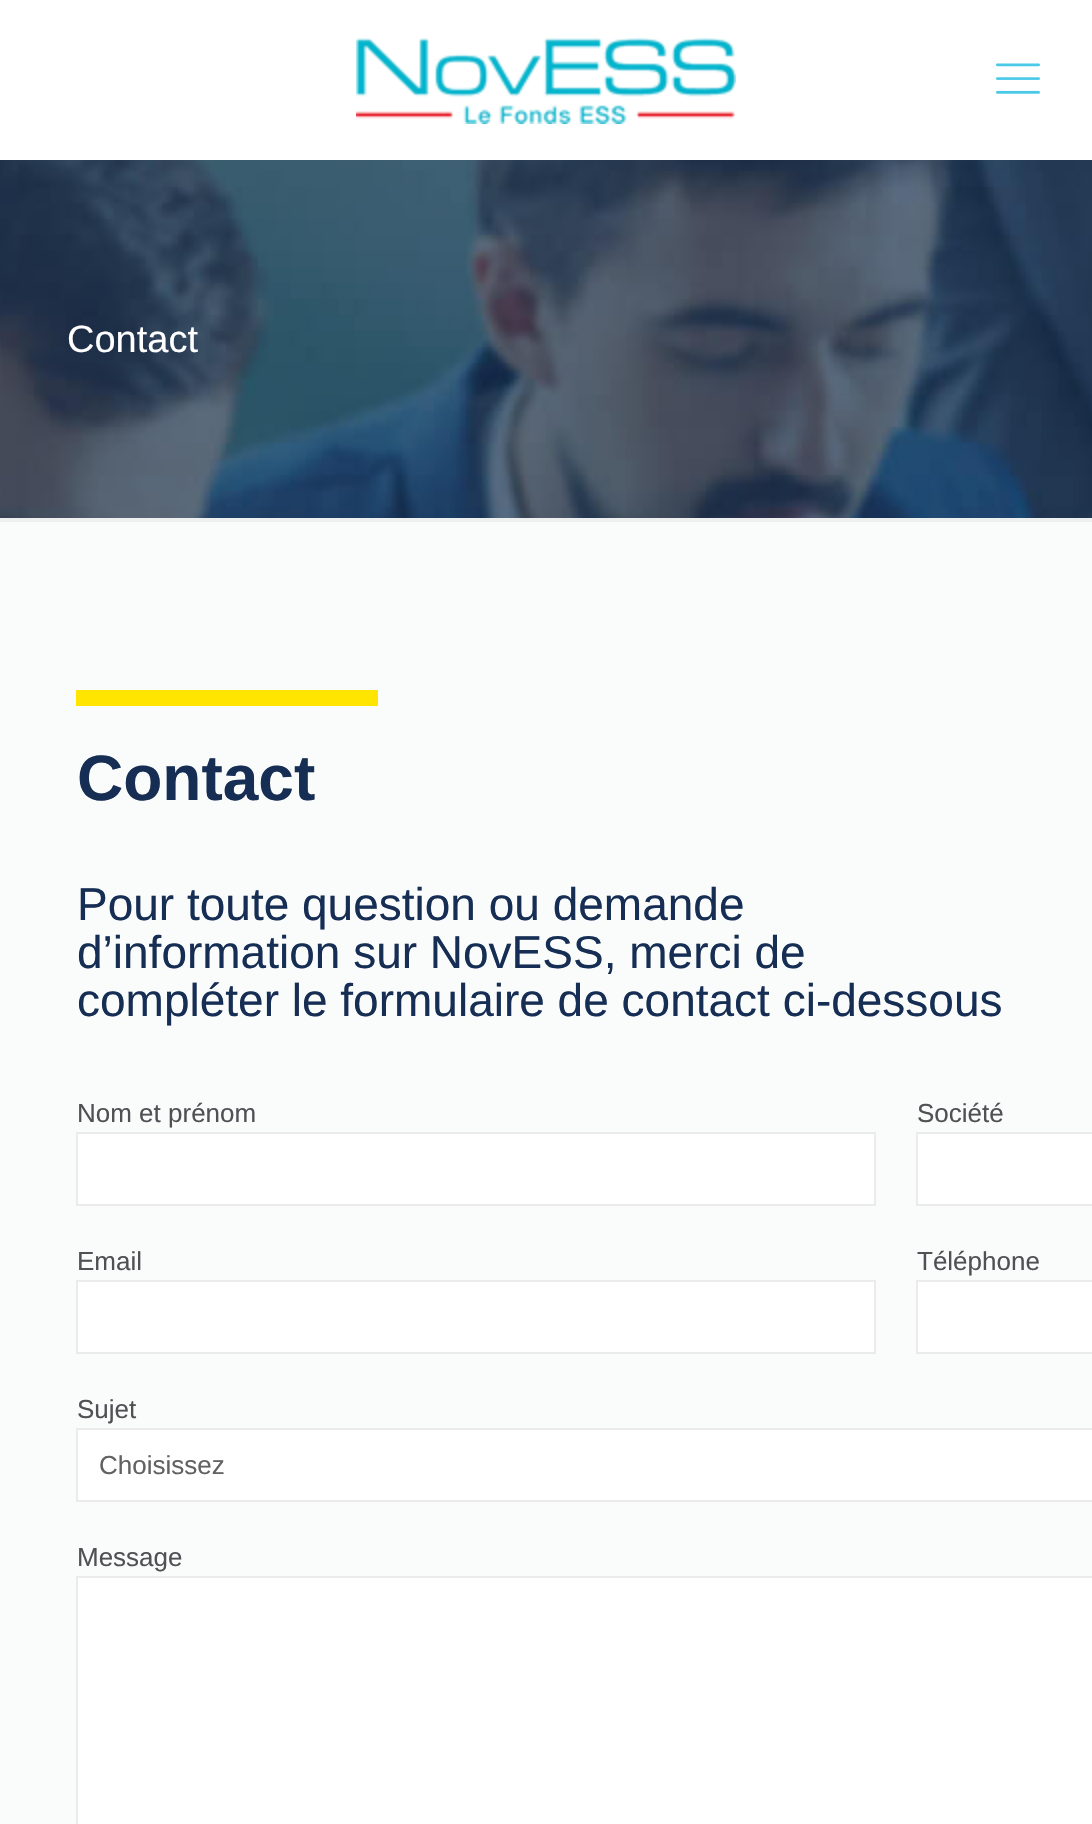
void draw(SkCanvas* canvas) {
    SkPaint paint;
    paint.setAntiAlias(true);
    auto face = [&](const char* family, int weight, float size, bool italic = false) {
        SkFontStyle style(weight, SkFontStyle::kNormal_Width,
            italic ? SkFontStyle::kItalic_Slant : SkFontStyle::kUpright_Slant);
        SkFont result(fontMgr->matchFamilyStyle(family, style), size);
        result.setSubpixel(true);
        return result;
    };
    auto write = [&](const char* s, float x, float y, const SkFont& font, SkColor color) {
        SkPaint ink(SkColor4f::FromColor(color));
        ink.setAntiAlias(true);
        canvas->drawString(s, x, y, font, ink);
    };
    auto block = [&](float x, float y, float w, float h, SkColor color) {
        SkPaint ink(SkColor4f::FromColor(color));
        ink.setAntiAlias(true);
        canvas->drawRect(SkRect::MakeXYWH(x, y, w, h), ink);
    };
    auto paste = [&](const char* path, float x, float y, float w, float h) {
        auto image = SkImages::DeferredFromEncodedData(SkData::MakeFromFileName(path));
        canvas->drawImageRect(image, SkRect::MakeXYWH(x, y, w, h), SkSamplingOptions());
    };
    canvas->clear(SkColorSetRGB(250, 252, 252));
    block(0, 0, 1092, 160, SK_ColorWHITE);
    paste("pic1.png", 356, 38, 380, 86);
    paste("pic2.png", 996, 63, 44, 31);
    paste("pic3.png", 0, 160, 1092, 358);
    auto kFont1 = face("Liberation Sans", 400, 38);
    write("Contact", 67, 352, kFont1, SK_ColorWHITE);
    block(0, 518, 1092, 4, SkColorSetRGB(238, 239, 239));
    block(76, 690, 302, 16, SkColorSetRGB(255, 229, 0));
    auto kFont2 = face("Liberation Sans", 700, 64);
    write("Contact", 77, 800, kFont2, SkColorSetRGB(23, 46, 84));
    auto kFont3 = face("Liberation Sans", 400, 46);
    write("Pour toute question ou demande", 77, 920, kFont3, SkColorSetRGB(23, 46, 84));
    write("d’information sur NovESS, merci de", 77, 968, kFont3, SkColorSetRGB(23, 46, 84));
    write("compléter le formulaire de contact ci-dessous", 77, 1016, kFont3, SkColorSetRGB(23, 46, 84));
    auto kFont4 = face("Liberation Sans", 400, 26);
    write("Nom et prénom", 77, 1122, kFont4, SkColorSetRGB(79, 81, 84));
    paint.setColor(SK_ColorWHITE);
    canvas->drawRect(SkRect::MakeXYWH(77, 1133, 798, 72), paint);
    paint.setStyle(SkPaint::kStroke_Style);
    paint.setStrokeWidth(2);
    paint.setColor(SkColorSetRGB(235, 235, 235));
    canvas->drawRect(SkRect::MakeXYWH(77, 1133, 798, 72), paint);
    write("Email", 77, 1270, kFont4, SkColorSetRGB(79, 81, 84));
    paint.setStyle(SkPaint::kFill_Style);
    paint.setColor(SK_ColorWHITE);
    canvas->drawRect(SkRect::MakeXYWH(77, 1281, 798, 72), paint);
    paint.setStyle(SkPaint::kStroke_Style);
    paint.setColor(SkColorSetRGB(235, 235, 235));
    canvas->drawRect(SkRect::MakeXYWH(77, 1281, 798, 72), paint);
    write("Société", 917, 1122, kFont4, SkColorSetRGB(79, 81, 84));
    paint.setStyle(SkPaint::kFill_Style);
    paint.setColor(SK_ColorWHITE);
    canvas->drawRect(SkRect::MakeXYWH(917, 1133, 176, 72), paint);
    paint.setStyle(SkPaint::kStroke_Style);
    paint.setColor(SkColorSetRGB(235, 235, 235));
    canvas->drawRect(SkRect::MakeXYWH(917, 1133, 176, 72), paint);
    write("Téléphone", 917, 1270, kFont4, SkColorSetRGB(79, 81, 84));
    paint.setStyle(SkPaint::kFill_Style);
    paint.setColor(SK_ColorWHITE);
    canvas->drawRect(SkRect::MakeXYWH(917, 1281, 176, 72), paint);
    paint.setStyle(SkPaint::kStroke_Style);
    paint.setColor(SkColorSetRGB(235, 235, 235));
    canvas->drawRect(SkRect::MakeXYWH(917, 1281, 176, 72), paint);
    write("Sujet", 77, 1418, kFont4, SkColorSetRGB(79, 81, 84));
    paint.setStyle(SkPaint::kFill_Style);
    paint.setColor(SK_ColorWHITE);
    canvas->drawRect(SkRect::MakeXYWH(77, 1429, 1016, 72), paint);
    paint.setStyle(SkPaint::kStroke_Style);
    paint.setColor(SkColorSetRGB(235, 235, 235));
    canvas->drawRect(SkRect::MakeXYWH(77, 1429, 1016, 72), paint);
    write("Choisissez", 99, 1474, kFont4, SkColorSetRGB(98, 98, 98));
    write("Message", 77, 1566, kFont4, SkColorSetRGB(79, 81, 84));
    paint.setStyle(SkPaint::kFill_Style);
    paint.setColor(SK_ColorWHITE);
    canvas->drawRect(SkRect::MakeXYWH(77, 1577, 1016, 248), paint);
    paint.setStyle(SkPaint::kStroke_Style);
    paint.setColor(SkColorSetRGB(235, 235, 235));
    canvas->drawRect(SkRect::MakeXYWH(77, 1577, 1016, 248), paint);
}
